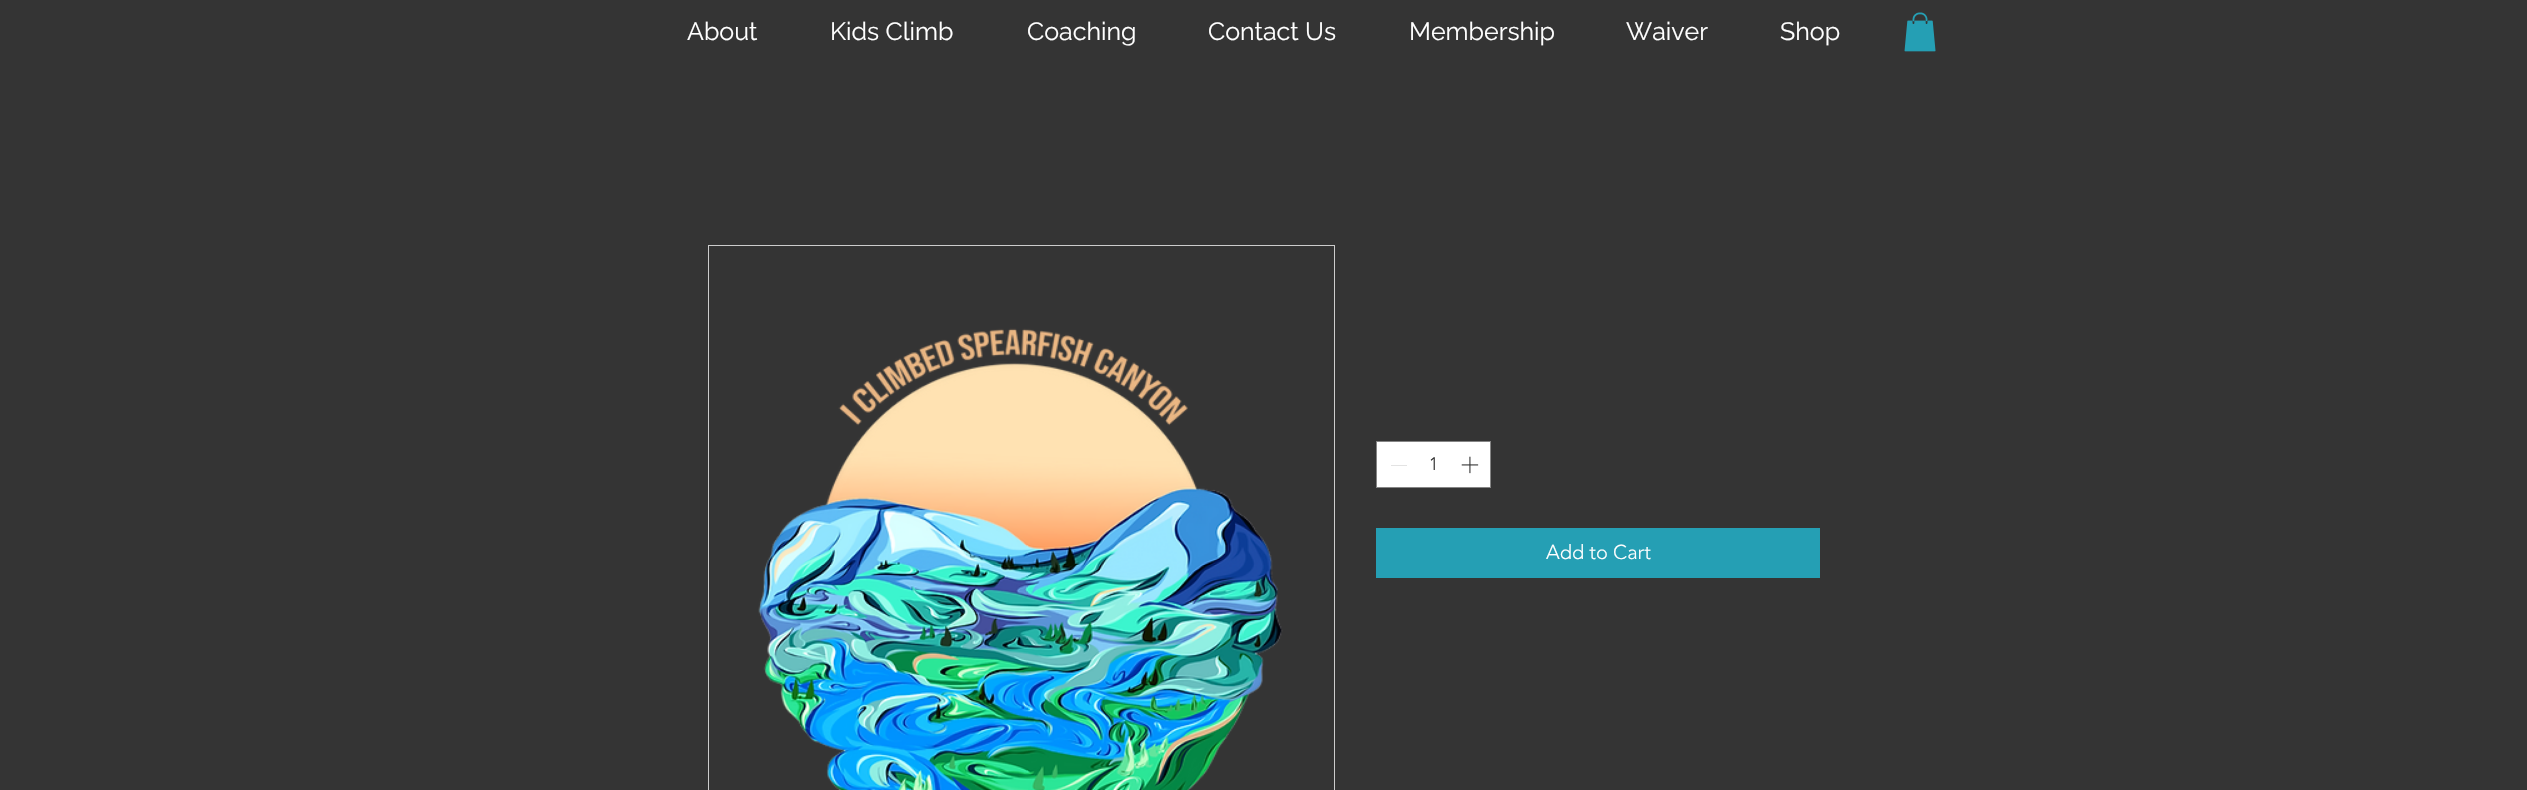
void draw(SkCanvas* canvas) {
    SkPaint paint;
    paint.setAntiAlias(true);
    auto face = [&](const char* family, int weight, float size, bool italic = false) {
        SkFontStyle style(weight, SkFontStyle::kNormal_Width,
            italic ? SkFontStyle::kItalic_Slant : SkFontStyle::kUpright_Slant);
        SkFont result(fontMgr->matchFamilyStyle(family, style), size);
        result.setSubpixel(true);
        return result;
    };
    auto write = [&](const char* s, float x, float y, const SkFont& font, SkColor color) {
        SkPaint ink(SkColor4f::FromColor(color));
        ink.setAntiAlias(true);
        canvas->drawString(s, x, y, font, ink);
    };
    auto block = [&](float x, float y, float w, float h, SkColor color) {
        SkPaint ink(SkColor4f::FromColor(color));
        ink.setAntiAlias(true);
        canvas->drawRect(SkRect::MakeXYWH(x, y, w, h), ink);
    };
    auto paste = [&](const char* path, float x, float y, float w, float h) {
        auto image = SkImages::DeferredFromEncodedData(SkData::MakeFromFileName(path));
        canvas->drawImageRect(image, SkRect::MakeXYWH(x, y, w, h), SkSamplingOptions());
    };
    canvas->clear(SkColorSetRGB(52, 52, 52));
    auto kFont1 = face("Raleway", 400, 25);
    write("About", 687, 40, kFont1, SK_ColorWHITE);
    write("Kids Climb", 830, 40, kFont1, SK_ColorWHITE);
    write("Coaching", 1027, 40, kFont1, SK_ColorWHITE);
    write("Contact Us", 1208, 40, kFont1, SK_ColorWHITE);
    write("Membership", 1409, 40, kFont1, SK_ColorWHITE);
    write("Waiver", 1626, 40, kFont1, SK_ColorWHITE);
    write("Shop", 1780, 40, kFont1, SK_ColorWHITE);
    paste("pic1.png", 1904, 12, 32, 40);
    paint.setStyle(SkPaint::kStroke_Style);
    paint.setStrokeWidth(1);
    paint.setColor(SkColorSetRGB(204, 204, 204));
    canvas->drawRect(SkRect::MakeXYWH(708.5f, 245.5f, 626, 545), paint);
    paste("pic2.png", 758, 328, 525, 462);
    paint.setStyle(SkPaint::kFill_Style);
    paint.setColor(SK_ColorWHITE);
    canvas->drawRect(SkRect::MakeXYWH(1376.5f, 441.5f, 114, 46), paint);
    paint.setStyle(SkPaint::kStroke_Style);
    paint.setColor(SkColorSetRGB(133, 133, 133));
    canvas->drawRect(SkRect::MakeXYWH(1376.5f, 441.5f, 114, 46), paint);
    block(1391, 465, 16, 1, SkColorSetRGB(227, 227, 227));
    auto kFont2 = face("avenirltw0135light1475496", 300, 18);
    write("1", 1429, 470, kFont2, SkColorSetRGB(52, 52, 52));
    paste("pic3.png", 1461, 456, 18, 18);
    block(1376, 528, 444, 50, SkColorSetRGB(37, 159, 180));
    auto kFont3 = face("avenirltw0135light1475496", 300, 20);
    write("Add to Cart", 1546, 559, kFont3, SK_ColorWHITE);
}
